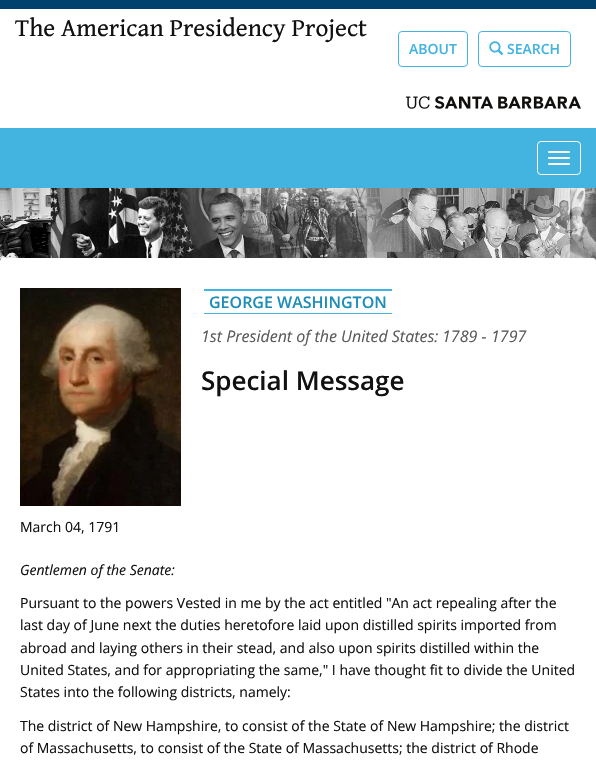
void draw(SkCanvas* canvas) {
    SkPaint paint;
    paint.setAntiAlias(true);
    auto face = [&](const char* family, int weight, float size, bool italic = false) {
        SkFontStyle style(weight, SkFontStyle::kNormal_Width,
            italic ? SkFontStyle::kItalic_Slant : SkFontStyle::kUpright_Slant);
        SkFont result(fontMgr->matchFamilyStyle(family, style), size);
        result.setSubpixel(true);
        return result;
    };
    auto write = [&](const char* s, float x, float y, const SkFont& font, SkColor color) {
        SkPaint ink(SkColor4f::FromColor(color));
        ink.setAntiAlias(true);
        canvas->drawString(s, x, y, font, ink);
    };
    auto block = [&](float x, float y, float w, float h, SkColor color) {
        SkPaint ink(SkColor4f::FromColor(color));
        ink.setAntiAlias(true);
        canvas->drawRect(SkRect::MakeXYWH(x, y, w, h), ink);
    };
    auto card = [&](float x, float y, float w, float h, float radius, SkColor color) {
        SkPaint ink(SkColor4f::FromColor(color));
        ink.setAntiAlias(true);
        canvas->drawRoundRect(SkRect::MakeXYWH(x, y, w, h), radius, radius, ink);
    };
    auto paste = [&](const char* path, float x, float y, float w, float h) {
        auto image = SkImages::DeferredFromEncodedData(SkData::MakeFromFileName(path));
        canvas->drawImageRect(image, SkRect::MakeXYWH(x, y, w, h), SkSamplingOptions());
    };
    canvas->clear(SK_ColorWHITE);
    block(0, 0, 596, 9, SkColorSetRGB(0, 65, 110));
    auto kFont1 = face("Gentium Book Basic", 400, 25.25f);
    write("The American Presidency Project", 15, 36, kFont1, SkColorSetRGB(17, 17, 17));
    paint.setStyle(SkPaint::kStroke_Style);
    paint.setStrokeWidth(1);
    paint.setColor(SkColorSetRGB(67, 180, 224));
    canvas->drawRoundRect(SkRect::MakeXYWH(398.5f, 31.5f, 69, 35), 3.5f, 3.5f, paint);
    auto kFont2 = face("Open Sans", 600, 14);
    write("ABOUT", 409, 54, kFont2, SkColorSetRGB(67, 180, 224));
    canvas->drawRoundRect(SkRect::MakeXYWH(478.5f, 31.5f, 92, 35), 3.5f, 3.5f, paint);
    paste("pic1.png", 489, 41, 15, 15);
    write("SEARCH", 507, 54, kFont2, SkColorSetRGB(67, 180, 224));
    paste("pic2.png", 406, 96, 175, 13);
    block(0, 128, 596, 60, SkColorSetRGB(67, 180, 224));
    paint.setColor(SK_ColorWHITE);
    canvas->drawRoundRect(SkRect::MakeXYWH(537.5f, 141.5f, 43, 33), 3.5f, 3.5f, paint);
    card(548, 151, 22, 2, 1, SK_ColorWHITE);
    card(548, 157, 22, 2, 1, SK_ColorWHITE);
    card(548, 163, 22, 2, 1, SK_ColorWHITE);
    paste("pic3.png", 0, 188, 596, 73);
    paint.setStyle(SkPaint::kFill_Style);
    canvas->drawPath(SkPathBuilder().moveTo(3, 258).lineTo(593, 258).cubicTo(594.5f, 258, 596, 259.5f, 596, 261).lineTo(596, 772).lineTo(0, 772).lineTo(0, 261).cubicTo(0, 259.5f, 1.5f, 258, 3, 258).close().detach(), paint);
    paste("pic4.png", 20, 288, 161, 218);
    auto kFont3 = face("Open Sans", 600, 16);
    write("GEORGE WASHINGTON", 209, 308, kFont3, SkColorSetRGB(30, 141, 184));
    block(204, 289, 188, 2, SkColorSetRGB(67, 180, 224));
    block(204, 313, 188, 1, SkColorSetRGB(67, 180, 224));
    auto kFont4 = face("Open Sans", 400, 16, true);
    write("1st President of the United States:", 201, 342, kFont4, SkColorSetRGB(90, 90, 90));
    write("1789", 442, 342, kFont4, SkColorSetRGB(90, 90, 90));
    auto kFont5 = face("Liberation Sans", 400, 16, true);
    write("‐", 481, 342, kFont5, SkColorSetRGB(90, 90, 90));
    write("1797", 491, 342, kFont4, SkColorSetRGB(90, 90, 90));
    auto kFont6 = face("Open Sans", 600, 26);
    write("Special Message", 201, 390, kFont6, SkColorSetRGB(17, 17, 17));
    auto kFont7 = face("Open Sans", 400, 14);
    write("March 04, 1791", 20, 532, kFont7, SkColorSetRGB(17, 17, 17));
    auto kFont8 = face("Open Sans", 400, 14, true);
    write("Gentlemen of the Senate:", 20, 575, kFont8, SkColorSetRGB(17, 17, 17));
    write("Pursuant to the powers Vested in me by the act entitled \"An act repealing after the", 20, 608, kFont7, SkColorSetRGB(17, 17, 17));
    write("last day of June next the duties heretofore laid upon distilled spirits imported from", 20, 630, kFont7, SkColorSetRGB(17, 17, 17));
    write("abroad and laying others in their stead, and also upon spirits distilled within the", 20, 653, kFont7, SkColorSetRGB(17, 17, 17));
    write("United States, and for appropriating the same,\" I have thought fit to divide the United", 20, 675, kFont7, SkColorSetRGB(17, 17, 17));
    write("States into the following districts, namely:", 20, 697, kFont7, SkColorSetRGB(17, 17, 17));
    write("The district of New Hampshire, to consist of the State of New Hampshire; the district", 20, 731, kFont7, SkColorSetRGB(17, 17, 17));
    write("of Massachusetts, to consist of the State of Massachusetts; the district of Rhode", 20, 753, kFont7, SkColorSetRGB(17, 17, 17));
}
